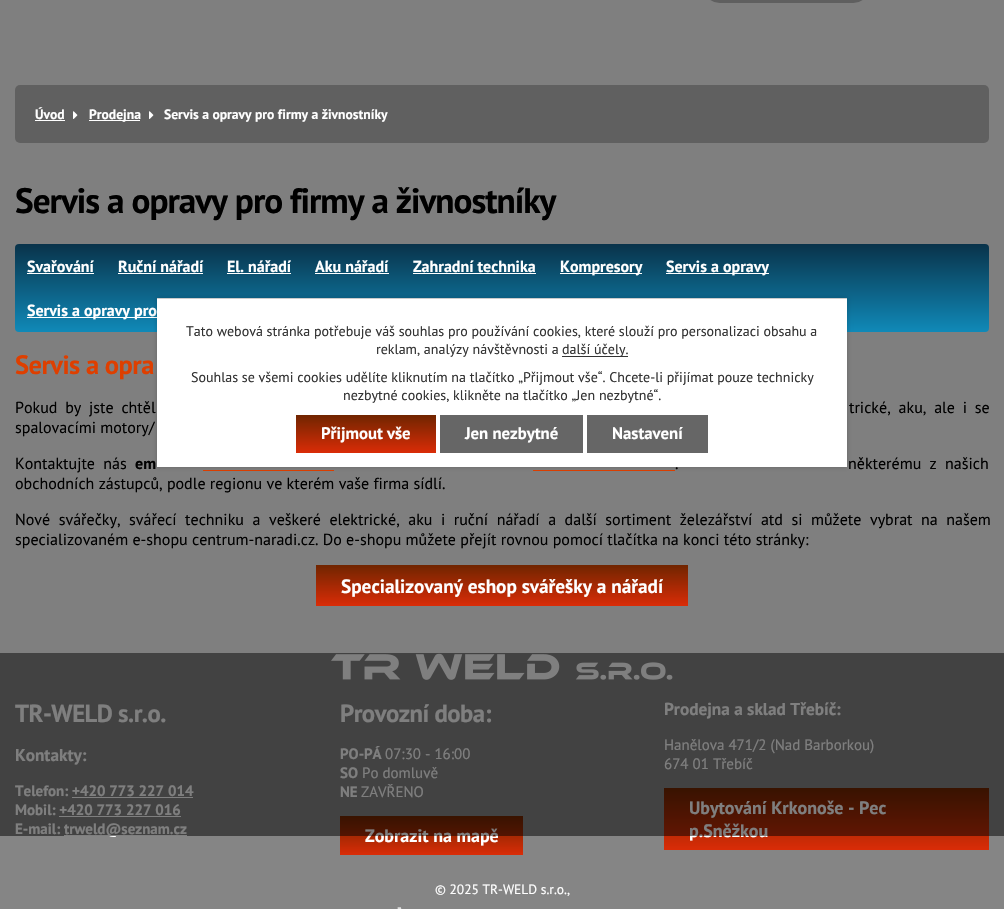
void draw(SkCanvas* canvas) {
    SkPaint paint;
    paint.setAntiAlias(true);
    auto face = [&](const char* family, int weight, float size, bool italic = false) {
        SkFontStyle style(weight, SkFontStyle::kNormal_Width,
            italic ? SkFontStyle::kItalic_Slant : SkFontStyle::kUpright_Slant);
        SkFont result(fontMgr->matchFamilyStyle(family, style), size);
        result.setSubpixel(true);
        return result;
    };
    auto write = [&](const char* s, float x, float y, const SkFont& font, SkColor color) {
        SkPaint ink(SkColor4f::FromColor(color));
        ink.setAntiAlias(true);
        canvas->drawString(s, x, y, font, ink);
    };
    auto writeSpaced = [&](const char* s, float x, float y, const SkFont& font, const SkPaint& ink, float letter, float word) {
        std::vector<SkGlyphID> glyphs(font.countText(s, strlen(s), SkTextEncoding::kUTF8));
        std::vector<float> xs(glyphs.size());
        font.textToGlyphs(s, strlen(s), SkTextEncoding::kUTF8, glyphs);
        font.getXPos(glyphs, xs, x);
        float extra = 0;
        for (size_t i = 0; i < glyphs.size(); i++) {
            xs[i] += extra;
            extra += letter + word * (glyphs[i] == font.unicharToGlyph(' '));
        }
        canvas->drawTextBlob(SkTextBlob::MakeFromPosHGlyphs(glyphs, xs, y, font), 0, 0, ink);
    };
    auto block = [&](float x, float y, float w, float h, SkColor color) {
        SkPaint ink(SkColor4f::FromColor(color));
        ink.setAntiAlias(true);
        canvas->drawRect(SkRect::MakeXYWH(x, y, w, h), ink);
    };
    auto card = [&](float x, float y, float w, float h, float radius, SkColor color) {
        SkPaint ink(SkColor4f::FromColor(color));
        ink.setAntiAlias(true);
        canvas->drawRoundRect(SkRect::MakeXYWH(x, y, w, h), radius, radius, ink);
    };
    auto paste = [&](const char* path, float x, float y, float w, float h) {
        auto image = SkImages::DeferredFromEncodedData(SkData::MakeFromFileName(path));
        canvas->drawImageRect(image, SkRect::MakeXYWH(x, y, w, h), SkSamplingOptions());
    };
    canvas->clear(SK_ColorWHITE);
    card(704, -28, 165, 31, 28, SkColorSetRGB(191, 191, 191));
    block(0, 653, 1004, 256, SkColorSetRGB(133, 133, 133));
    paste("pic2.png", 331, 653, 342, 27);
    auto kFont1 = face("PT Sans", 700, 24.75f);
    paint.setColor(SK_ColorWHITE);
    writeSpaced("TR-WELD s.r.o.", 15, 722, kFont1, paint, -0.5f, 0);
    auto kFont2 = face("PT Sans", 700, 17.25f);
    write("Kontakty:", 15, 761, kFont2, SK_ColorWHITE);
    auto kFont3 = face("PT Sans", 700, 15);
    write("Telefon: +420 773 227 014", 15, 796, kFont3, SK_ColorWHITE);
    block(72, 797, 121, 1, SK_ColorWHITE);
    write("Mobil: +420 773 227 016", 15, 815, kFont3, SK_ColorWHITE);
    block(59, 816, 122, 1, SK_ColorWHITE);
    write("E-mail:", 15, 834, kFont3, SK_ColorWHITE);
    block(64, 835, 123, 1, SK_ColorWHITE);
    write("trweld@seznam.cz", 64, 834, kFont3, SK_ColorWHITE);
    writeSpaced("Provozní doba:", 340, 722, kFont1, paint, -0.5f, 0);
    write("PO-PÁ", 340, 759, kFont3, SK_ColorWHITE);
    auto kFont4 = face("PT Sans", 400, 15);
    write("07:30 - 16:00", 385, 759, kFont4, SK_ColorWHITE);
    write("SO", 340, 778, kFont3, SK_ColorWHITE);
    write("Po domluvě", 362, 778, kFont4, SK_ColorWHITE);
    write("NE", 340, 797, kFont3, SK_ColorWHITE);
    write("ZAVŘENO", 361, 797, kFont4, SK_ColorWHITE);
    {
        const SkColor colors[] = {SkColorSetRGB(112, 37, 0), SkColorSetRGB(218, 44, 7)};
        const float stops[] = {0, 1};
        const SkPoint ends[] = {{340, 816}, {340, 855}};
        paint.setShader(SkGradientShader::MakeLinear(ends, colors, stops, 2, SkTileMode::kClamp));
        paint.setAlpha(255);
    }
    canvas->drawRect(SkRect::MakeXYWH(340, 816, 183, 39), paint);
    auto kFont5 = face("PT Sans", 700, 18);
    write("Zobrazit na mapě", 365, 842, kFont5, SK_ColorWHITE);
    write("Prodejna a sklad Třebíč:", 664, 715, kFont2, SK_ColorWHITE);
    write("Hanělova 471/2 (Nad Barborkou)", 664, 750, kFont4, SK_ColorWHITE);
    write("674 01 Třebíč", 664, 769, kFont4, SK_ColorWHITE);
    {
        const SkColor colors[] = {SkColorSetRGB(112, 37, 0), SkColorSetRGB(218, 44, 7)};
        const float stops[] = {0, 1};
        const SkPoint ends[] = {{664, 788}, {664, 850}};
        paint.setShader(SkGradientShader::MakeLinear(ends, colors, stops, 2, SkTileMode::kClamp));
        paint.setAlpha(255);
    }
    canvas->drawRect(SkRect::MakeXYWH(664, 788, 325, 62), paint);
    write("Ubytování Krkonoše - Pec", 689, 814, kFont5, SK_ColorWHITE);
    write("p.Sněžkou", 689, 837, kFont5, SK_ColorWHITE);
    block(0, 0, 1004, 836, SkColorSetARGB(128, 0, 0, 0));
    card(15, 85, 974, 58, 5, SkColorSetRGB(96, 96, 96));
    auto kFont6 = face("PT Sans", 700, 13.6f);
    write("Úvod", 35, 119, kFont6, SK_ColorWHITE);
    block(35, 120, 30, 1, SK_ColorWHITE);
    paste("pic1.png", 73, 111, 5, 8);
    block(89, 120, 51, 1, SK_ColorWHITE);
    write("Prodejna", 89, 119, kFont6, SK_ColorWHITE);
    paste("pic1.png", 149, 111, 5, 8);
    write("Servis a opravy pro firmy a živnostníky", 164, 119, kFont6, SK_ColorWHITE);
    auto kFont7 = face("PT Sans", 700, 35.25f);
    paint.setShader(nullptr);
    paint.setColor(SK_ColorBLACK);
    writeSpaced("Servis a opravy pro firmy a živnostníky", 15, 213, kFont7, paint, -1, 0);
    {
        const SkColor colors[] = {SkColorSetRGB(9, 51, 74), SkColorSetRGB(16, 137, 184)};
        const float stops[] = {0, 1};
        const SkPoint ends[] = {{502, 244}, {502, 332}};
        paint.setShader(SkGradientShader::MakeLinear(ends, colors, stops, 2, SkTileMode::kClamp));
        paint.setAlpha(255);
    }
    canvas->drawRoundRect(SkRect::MakeXYWH(15, 244, 974, 88), 4, 4, paint);
    auto kFont8 = face("PT Sans", 700, 16);
    write("Svařování", 27, 272, kFont8, SK_ColorWHITE);
    block(27, 273, 67, 1, SK_ColorWHITE);
    write("Ruční nářadí", 118, 272, kFont8, SK_ColorWHITE);
    block(118, 273, 85, 1, SK_ColorWHITE);
    write("El. nářadí", 227, 272, kFont8, SK_ColorWHITE);
    block(227, 273, 64, 1, SK_ColorWHITE);
    write("Aku nářadí", 315, 272, kFont8, SK_ColorWHITE);
    block(315, 273, 74, 1, SK_ColorWHITE);
    write("Zahradní technika", 413, 272, kFont8, SK_ColorWHITE);
    block(413, 273, 123, 1, SK_ColorWHITE);
    block(560, 273, 82, 1, SK_ColorWHITE);
    write("Kompresory", 560, 272, kFont8, SK_ColorWHITE);
    block(666, 273, 103, 1, SK_ColorWHITE);
    write("Servis a opravy", 666, 272, kFont8, SK_ColorWHITE);
    block(27, 317, 130, 1, SK_ColorWHITE);
    write("Servis a opravy pro", 27, 316, kFont8, SK_ColorWHITE);
    auto kFont9 = face("PT Sans", 700, 26.5f);
    paint.setShader(nullptr);
    paint.setColor(SkColorSetRGB(222, 63, 0));
    writeSpaced("Servis a opra", 15, 374, kFont9, paint, -0.5f, 0);
    auto kFont10 = face("PT Sans", 400, 16);
    paint.setColor(SK_ColorBLACK);
    writeSpaced("Pokud by jste chtěl", 15, 413, kFont10, paint, 0, 3.5f);
    writeSpaced("trické, aku, ale i se", 849, 413, kFont10, paint, 0, 3.5f);
    write("spalovacími motory/", 15, 433, kFont10, SK_ColorBLACK);
    writeSpaced("Kontaktujte nás", 15, 469, kFont10, paint, 0, 4);
    write("em", 135, 469, kFont8, SK_ColorBLACK);
    writeSpaced(".", 675, 469, kFont10, paint, 0, 4);
    writeSpaced("některému z našich", 848, 469, kFont10, paint, 0, 4);
    block(203, 470, 131, 1, SkColorSetRGB(222, 63, 0));
    block(533, 470, 142, 1, SkColorSetRGB(222, 63, 0));
    write("obchodních zástupců, podle regionu ve kterém vaše firma sídlí.", 15, 489, kFont10, SK_ColorBLACK);
    writeSpaced("Nové svářečky, svářecí techniku a veškeré elektrické, aku i ruční nářadí a další sortiment železářství atd si můžete vybrat na našem", 15, 525, kFont10, paint, 0, 4.25f);
    write("specializovaném e-shopu centrum-naradi.cz. Do e-shopu můžete přejít rovnou pomocí tlačítka na konci této stránky:", 15, 545, kFont10, SK_ColorBLACK);
    {
        const SkColor colors[] = {SkColorSetRGB(112, 37, 0), SkColorSetRGB(218, 44, 7)};
        const float stops[] = {0, 1};
        const SkPoint ends[] = {{316, 565}, {316, 606}};
        paint.setShader(SkGradientShader::MakeLinear(ends, colors, stops, 2, SkTileMode::kClamp));
        paint.setAlpha(255);
    }
    canvas->drawRect(SkRect::MakeXYWH(316, 565, 372, 41), paint);
    auto kFont11 = face("PT Sans", 700, 19.25f);
    write("Specializovaný eshop svářešky a nářadí", 341, 593, kFont11, SK_ColorWHITE);
    paint.setShader(nullptr);
    paint.setColor(SkColorSetARGB(51, 0, 0, 0));
    paint.setMaskFilter(SkMaskFilter::MakeBlur(kNormal_SkBlurStyle, 2.5f));
    canvas->drawRect(SkRect::MakeXYWH(157, 298, 690, 169), paint);
    paint.setMaskFilter(nullptr);
    block(157, 299, 690, 168, SK_ColorWHITE);
    block(157, 298, 690, 1, SkColorSetRGB(204, 204, 204));
    auto kFont12 = face("PT Sans", 400, 14);
    write("Tato webová stránka potřebuje váš souhlas pro používání cookies, které slouží pro personalizaci obsahu a", 186, 336, kFont12, SkColorSetRGB(51, 51, 51));
    write("reklam, analýzy návštěvnosti a", 376, 354, kFont12, SkColorSetRGB(51, 51, 51));
    block(562, 356, 66, 1, SkColorSetRGB(51, 51, 51));
    write("další účely.", 562, 354, kFont12, SkColorSetRGB(51, 51, 51));
    write("Souhlas se všemi cookies udělíte kliknutím na tlačítko „Přijmout vše“. Chcete-li přijímat pouze technicky", 191, 382, kFont12, SkColorSetRGB(51, 51, 51));
    write("nezbytné cookies, klikněte na tlačítko „Jen nezbytné“.", 343, 400, kFont12, SkColorSetRGB(51, 51, 51));
    {
        const SkColor colors[] = {SkColorSetRGB(112, 37, 0), SkColorSetRGB(218, 44, 7)};
        const float stops[] = {0, 1};
        const SkPoint ends[] = {{296, 415}, {296, 453}};
        paint.setShader(SkGradientShader::MakeLinear(ends, colors, stops, 2, SkTileMode::kClamp));
        paint.setAlpha(255);
    }
    canvas->drawRect(SkRect::MakeXYWH(296, 415, 140, 38), paint);
    auto kFont13 = face("PT Sans", 700, 16.75f);
    write("Přijmout vše", 321, 439, kFont13, SK_ColorWHITE);
    block(440, 415, 143, 38, SkColorSetRGB(102, 102, 102));
    write("Jen nezbytné", 465, 439, kFont13, SK_ColorWHITE);
    block(587, 415, 121, 38, SkColorSetRGB(102, 102, 102));
    write("Nastavení", 612, 439, kFont13, SK_ColorWHITE);
    auto kFont14 = face("PT Sans", 400, 13.5f);
    write("© 2025 TR-WELD s.r.o.,", 435, 894, kFont14, SK_ColorWHITE);
    write("-", 397, 912, kFont14, SK_ColorWHITE);
}
